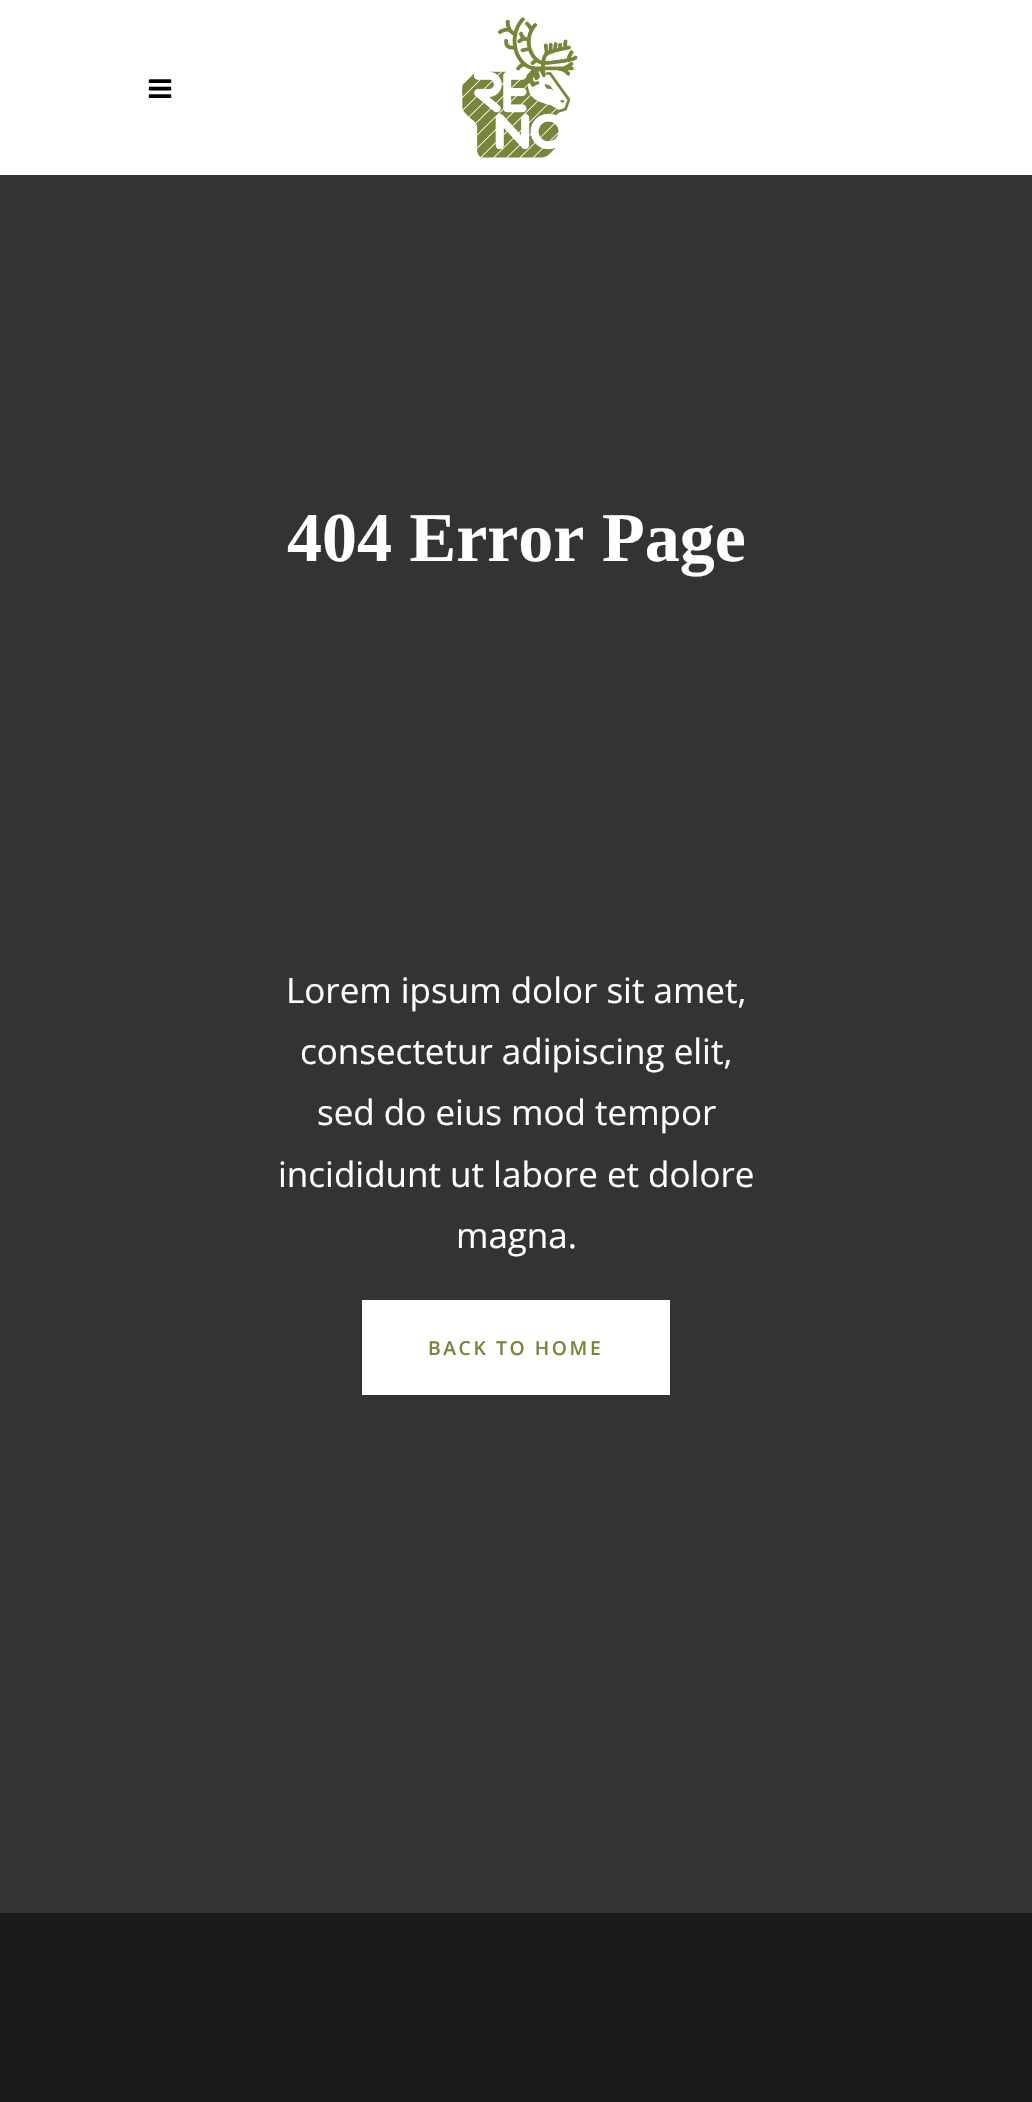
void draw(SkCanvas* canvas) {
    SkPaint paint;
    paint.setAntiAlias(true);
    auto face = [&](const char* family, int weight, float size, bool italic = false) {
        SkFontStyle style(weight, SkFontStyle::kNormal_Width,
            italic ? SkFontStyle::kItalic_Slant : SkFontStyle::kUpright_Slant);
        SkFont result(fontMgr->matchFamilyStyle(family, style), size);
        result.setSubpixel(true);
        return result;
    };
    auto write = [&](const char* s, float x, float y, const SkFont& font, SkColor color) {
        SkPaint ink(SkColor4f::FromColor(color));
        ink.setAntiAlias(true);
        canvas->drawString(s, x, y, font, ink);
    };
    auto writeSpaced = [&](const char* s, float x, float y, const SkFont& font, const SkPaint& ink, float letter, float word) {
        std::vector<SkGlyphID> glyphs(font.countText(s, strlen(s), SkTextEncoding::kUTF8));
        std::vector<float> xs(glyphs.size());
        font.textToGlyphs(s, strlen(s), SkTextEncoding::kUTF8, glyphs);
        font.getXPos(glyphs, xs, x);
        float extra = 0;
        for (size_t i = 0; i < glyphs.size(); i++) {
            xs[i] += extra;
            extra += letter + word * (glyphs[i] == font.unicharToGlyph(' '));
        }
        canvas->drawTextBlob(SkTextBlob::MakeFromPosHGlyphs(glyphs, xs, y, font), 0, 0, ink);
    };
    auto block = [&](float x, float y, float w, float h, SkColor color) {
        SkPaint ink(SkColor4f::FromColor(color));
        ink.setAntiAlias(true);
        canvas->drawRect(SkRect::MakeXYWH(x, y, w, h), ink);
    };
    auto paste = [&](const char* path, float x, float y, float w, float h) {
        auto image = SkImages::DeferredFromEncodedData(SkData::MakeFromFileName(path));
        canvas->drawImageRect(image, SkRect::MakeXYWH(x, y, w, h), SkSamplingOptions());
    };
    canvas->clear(SK_ColorWHITE);
    paste("pic1.png", 148, 79, 24, 19);
    paste("pic2.png", 462, 17, 116, 141);
    block(0, 175, 1032, 1738, SkColorSetRGB(51, 51, 51));
    auto kFont1 = face("Liberation Serif", 700, 70);
    write("404 Error Page", 287, 561, kFont1, SK_ColorWHITE);
    auto kFont2 = face("Open Sans", 400, 35);
    write("Lorem ipsum dolor sit amet,", 286, 1003, kFont2, SK_ColorWHITE);
    write("consectetur adipiscing elit,", 300, 1064, kFont2, SK_ColorWHITE);
    write("sed do eius mod tempor", 317, 1125, kFont2, SK_ColorWHITE);
    write("incididunt ut labore et dolore", 278, 1187, kFont2, SK_ColorWHITE);
    write("magna.", 456, 1248, kFont2, SK_ColorWHITE);
    block(362, 1300, 308, 95, SK_ColorWHITE);
    auto kFont3 = face("Open Sans", 600, 19.25f);
    paint.setColor(SkColorSetRGB(121, 133, 59));
    writeSpaced("BACK TO HOME", 428, 1355, kFont3, paint, 2.6f, 0);
    block(0, 1913, 1032, 189, SkColorSetRGB(27, 27, 27));
}
